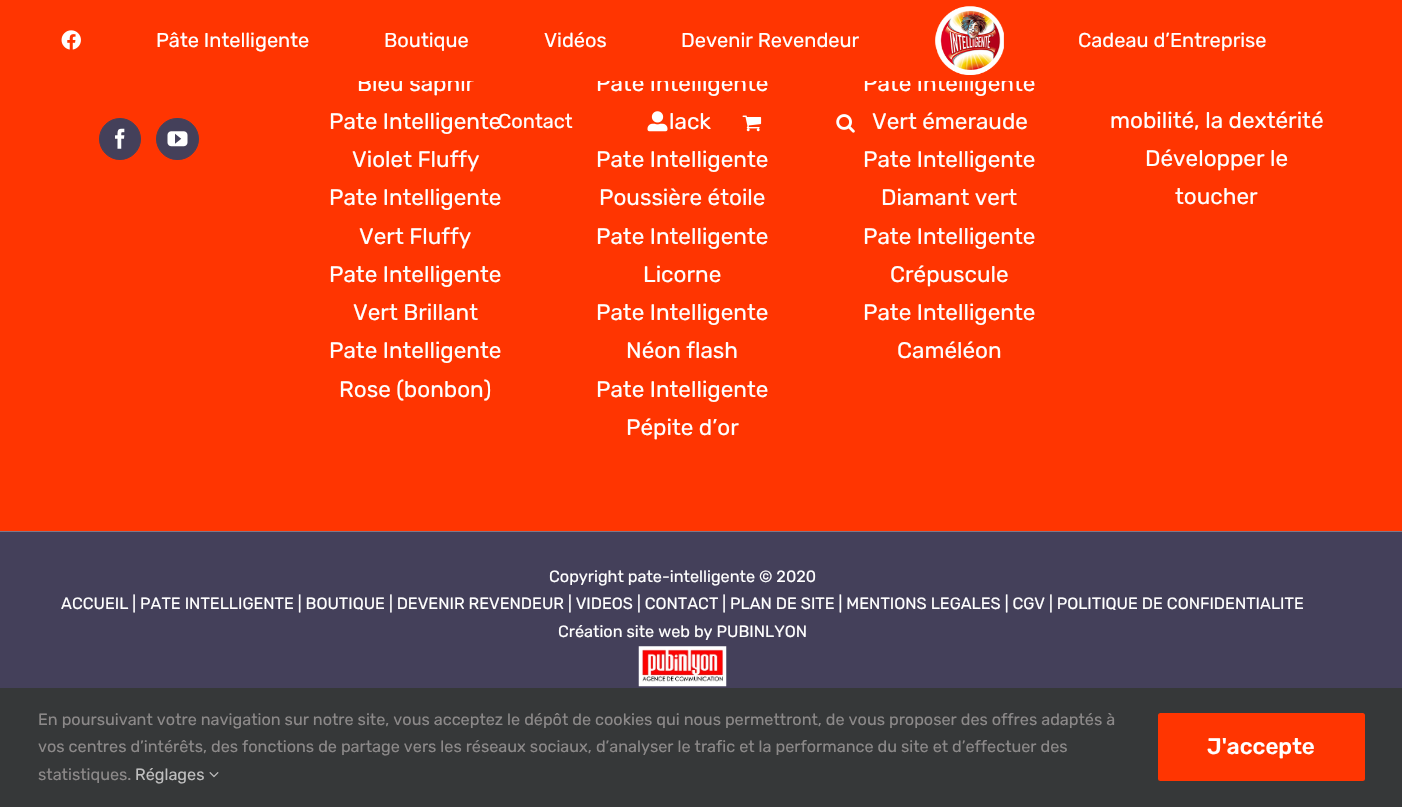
void draw(SkCanvas* canvas) {
    SkPaint paint;
    paint.setAntiAlias(true);
    auto face = [&](const char* family, int weight, float size, bool italic = false) {
        SkFontStyle style(weight, SkFontStyle::kNormal_Width,
            italic ? SkFontStyle::kItalic_Slant : SkFontStyle::kUpright_Slant);
        SkFont result(fontMgr->matchFamilyStyle(family, style), size);
        result.setSubpixel(true);
        return result;
    };
    auto write = [&](const char* s, float x, float y, const SkFont& font, SkColor color) {
        SkPaint ink(SkColor4f::FromColor(color));
        ink.setAntiAlias(true);
        canvas->drawString(s, x, y, font, ink);
    };
    auto block = [&](float x, float y, float w, float h, SkColor color) {
        SkPaint ink(SkColor4f::FromColor(color));
        ink.setAntiAlias(true);
        canvas->drawRect(SkRect::MakeXYWH(x, y, w, h), ink);
    };
    auto card = [&](float x, float y, float w, float h, float radius, SkColor color) {
        SkPaint ink(SkColor4f::FromColor(color));
        ink.setAntiAlias(true);
        canvas->drawRoundRect(SkRect::MakeXYWH(x, y, w, h), radius, radius, ink);
    };
    auto paste = [&](const char* path, float x, float y, float w, float h) {
        auto image = SkImages::DeferredFromEncodedData(SkData::MakeFromFileName(path));
        canvas->drawImageRect(image, SkRect::MakeXYWH(x, y, w, h), SkSamplingOptions());
    };
    canvas->clear(SkColorSetRGB(255, 53, 1));
    auto kFont1 = face("Rubik", 400, 22.5f);
    write("Bleu saphir", 357, 91, kFont1, SK_ColorWHITE);
    write("Pate Intelligente", 596, 91, kFont1, SK_ColorWHITE);
    write("Pate Intelligente", 863, 91, kFont1, SK_ColorWHITE);
    block(358, 74, 676, 7, SkColorSetRGB(255, 53, 1));
    paste("pic1.png", 61, 30, 20, 20);
    auto kFont2 = face("Rubik", 400, 20);
    write("Pâte Intelligente", 156, 47, kFont2, SK_ColorWHITE);
    write("Boutique", 384, 47, kFont2, SK_ColorWHITE);
    write("Vidéos", 544, 47, kFont2, SK_ColorWHITE);
    write("Devenir Revendeur", 681, 47, kFont2, SK_ColorWHITE);
    paste("pic2.png", 935, 6, 69, 69);
    write("Cadeau d’Entreprise", 1078, 47, kFont2, SK_ColorWHITE);
    write("Pate Intelligente", 329, 129, kFont1, SK_ColorWHITE);
    write("Contact", 498, 128, kFont2, SK_ColorWHITE);
    paste("pic3.png", 647, 111, 21, 21);
    paste("pic4.png", 742, 115, 20, 17);
    paste("pic5.png", 836, 114, 19, 19);
    paint.setColor(SkColorSetRGB(68, 64, 90));
    canvas->drawCircle(120, 139, 20.5f, paint);
    paint.setStyle(SkPaint::kStroke_Style);
    paint.setStrokeWidth(1);
    canvas->drawCircle(120, 139, 20.5f, paint);
    paste("pic6.png", 115, 128, 10, 21);
    paint.setStyle(SkPaint::kFill_Style);
    canvas->drawRoundRect(SkRect::MakeXYWH(156.5f, 118.5f, 42, 41), 20.5f, 20.5f, paint);
    paint.setStyle(SkPaint::kStroke_Style);
    canvas->drawRoundRect(SkRect::MakeXYWH(156.5f, 118.5f, 42, 41), 20.5f, 20.5f, paint);
    paste("pic7.png", 167, 131, 21, 16);
    write("Violet Fluffy", 352, 167, kFont1, SK_ColorWHITE);
    write("Pate Intelligente", 329, 205, kFont1, SK_ColorWHITE);
    write("Vert Fluffy", 359, 244, kFont1, SK_ColorWHITE);
    write("Pate Intelligente", 329, 282, kFont1, SK_ColorWHITE);
    write("Vert Brillant", 353, 320, kFont1, SK_ColorWHITE);
    write("Pate Intelligente", 329, 358, kFont1, SK_ColorWHITE);
    write("Rose (bonbon)", 339, 397, kFont1, SK_ColorWHITE);
    write("lack", 669, 129, kFont1, SK_ColorWHITE);
    write("Pate Intelligente", 596, 167, kFont1, SK_ColorWHITE);
    write("Poussière étoile", 599, 205, kFont1, SK_ColorWHITE);
    write("Pate Intelligente", 596, 244, kFont1, SK_ColorWHITE);
    write("Licorne", 643, 282, kFont1, SK_ColorWHITE);
    write("Pate Intelligente", 596, 320, kFont1, SK_ColorWHITE);
    write("Néon flash", 626, 358, kFont1, SK_ColorWHITE);
    write("Pate Intelligente", 596, 397, kFont1, SK_ColorWHITE);
    write("Pépite d’or", 626, 435, kFont1, SK_ColorWHITE);
    write("Vert émeraude", 872, 129, kFont1, SK_ColorWHITE);
    write("Pate Intelligente", 863, 167, kFont1, SK_ColorWHITE);
    write("Diamant vert", 881, 205, kFont1, SK_ColorWHITE);
    write("Pate Intelligente", 863, 244, kFont1, SK_ColorWHITE);
    write("Crépuscule", 890, 282, kFont1, SK_ColorWHITE);
    write("Pate Intelligente", 863, 320, kFont1, SK_ColorWHITE);
    write("Caméléon", 897, 358, kFont1, SK_ColorWHITE);
    write("mobilité, la dextérité", 1110, 128, kFont1, SK_ColorWHITE);
    write("Développer le", 1145, 166, kFont1, SK_ColorWHITE);
    write("toucher", 1175, 204, kFont1, SK_ColorWHITE);
    block(0, 532, 1402, 156, SkColorSetRGB(68, 64, 90));
    block(0, 531, 1402, 1, SkColorSetRGB(126, 120, 138));
    auto kFont3 = face("Rubik", 400, 16.25f);
    write("Copyright pate-intelligente © 2020", 549, 582, kFont3, SK_ColorWHITE);
    write("ACCUEIL | PATE INTELLIGENTE | BOUTIQUE | DEVENIR REVENDEUR | VIDEOS | CONTACT | PLAN DE SITE | MENTIONS LEGALES | CGV | POLITIQUE DE CONFIDENTIALITE", 61, 609, kFont3, SK_ColorWHITE);
    write("Création site web by PUBINLYON", 558, 637, kFont3, SK_ColorWHITE);
    paste("pic8.png", 638, 646, 89, 41);
    block(0, 688, 1402, 119, SkColorSetRGB(54, 56, 57));
    write("En poursuivant votre navigation sur notre site, vous acceptez le dépôt de cookies qui nous permettront, de vous proposer des offres adaptés à", 38, 725, kFont3, SkColorSetRGB(140, 137, 137));
    write("vos centres d’intérêts, des fonctions de partage vers les réseaux sociaux, d’analyser le trafic et la performance du site et d’effectuer des", 38, 752, kFont3, SkColorSetRGB(140, 137, 137));
    write("statistiques.", 38, 780, kFont3, SkColorSetRGB(140, 137, 137));
    write("Réglages", 135, 780, kFont3, SkColorSetRGB(191, 191, 191));
    paste("pic9.png", 209, 772, 10, 6);
    card(1158, 713, 207, 68, 2.5f, SkColorSetRGB(255, 53, 1));
    auto kFont4 = face("Rubik", 500, 22.5f);
    write("J'accepte", 1207, 754, kFont4, SK_ColorWHITE);
}
